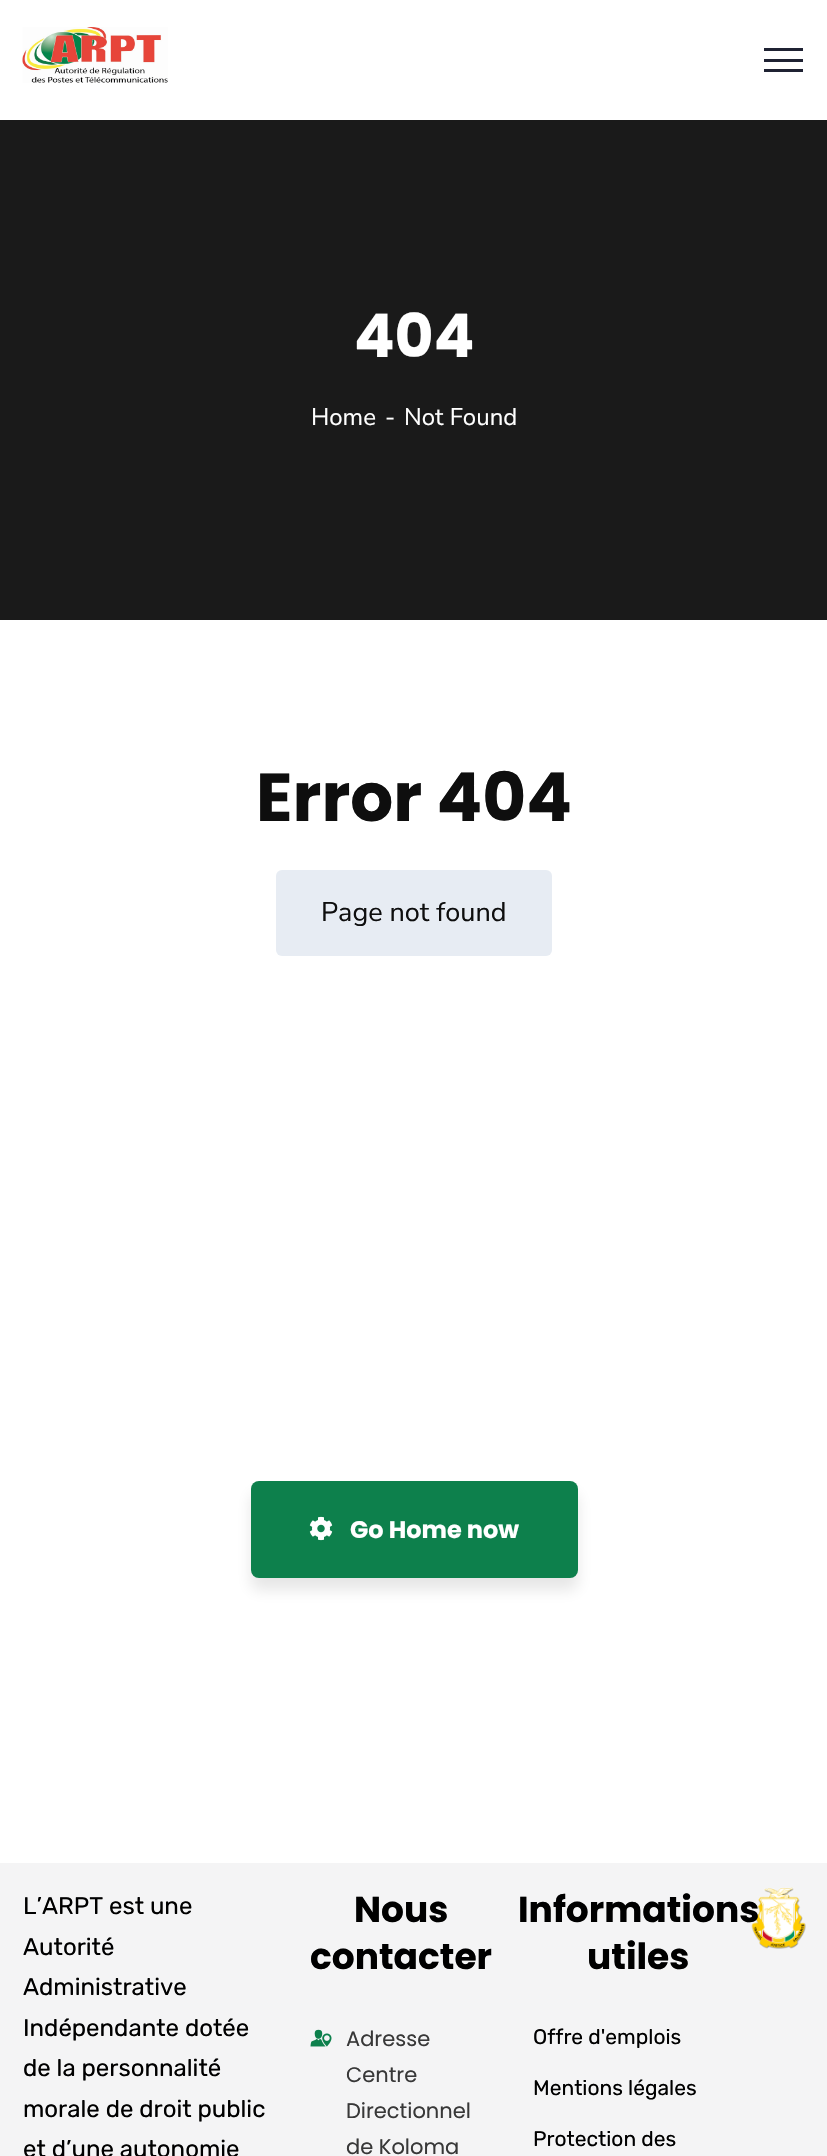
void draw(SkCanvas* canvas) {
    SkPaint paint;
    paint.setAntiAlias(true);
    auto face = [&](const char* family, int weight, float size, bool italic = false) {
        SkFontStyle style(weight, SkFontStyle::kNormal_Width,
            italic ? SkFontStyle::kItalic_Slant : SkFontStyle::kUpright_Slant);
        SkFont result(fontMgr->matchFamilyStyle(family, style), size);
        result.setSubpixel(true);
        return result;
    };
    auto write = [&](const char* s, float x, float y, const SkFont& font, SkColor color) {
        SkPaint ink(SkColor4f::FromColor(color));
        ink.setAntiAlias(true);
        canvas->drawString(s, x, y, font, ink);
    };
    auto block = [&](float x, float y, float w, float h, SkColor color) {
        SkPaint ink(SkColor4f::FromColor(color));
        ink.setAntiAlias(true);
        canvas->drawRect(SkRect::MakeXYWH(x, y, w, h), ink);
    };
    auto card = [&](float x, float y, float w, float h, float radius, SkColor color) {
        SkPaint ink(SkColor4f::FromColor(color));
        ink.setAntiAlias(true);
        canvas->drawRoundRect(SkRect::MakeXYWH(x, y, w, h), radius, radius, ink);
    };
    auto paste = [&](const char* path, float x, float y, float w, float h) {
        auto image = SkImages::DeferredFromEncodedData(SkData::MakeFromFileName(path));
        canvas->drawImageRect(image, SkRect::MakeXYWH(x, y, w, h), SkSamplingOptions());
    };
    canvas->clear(SK_ColorWHITE);
    paste("pic1.png", 22, 27, 146, 56);
    block(764, 48, 39, 3, SkColorSetRGB(31, 34, 51));
    block(764, 59, 39, 3, SkColorSetRGB(31, 34, 51));
    block(764, 69, 39, 3, SkColorSetRGB(31, 34, 51));
    block(0, 120, 827, 500, SkColorSetRGB(26, 26, 26));
    auto kFont1 = face("Poppins", 700, 60);
    write("404", 354, 357, kFont1, SK_ColorWHITE);
    auto kFont2 = face("Nunito Sans", 400, 24);
    write("Home", 311, 425, kFont2, SK_ColorWHITE);
    write("-", 385, 425, kFont2, SK_ColorWHITE);
    write("Not Found", 404, 425, kFont2, SK_ColorWHITE);
    auto kFont3 = face("Poppins", 700, 67.5f);
    write("Error 404", 256, 821, kFont3, SkColorSetRGB(14, 14, 14));
    card(276, 870, 276, 86, 6, SkColorSetRGB(231, 236, 243));
    auto kFont4 = face("Nunito Sans", 400, 27);
    write("Page not found", 321, 921, kFont4, SkColorSetRGB(14, 14, 14));
    paint.setColor(SkColorSetARGB(26, 12, 12, 12));
    paint.setMaskFilter(SkMaskFilter::MakeBlur(kNormal_SkBlurStyle, 7.5f));
    canvas->drawRoundRect(SkRect::MakeXYWH(251, 1493, 327, 97), 8, 8, paint);
    paint.setMaskFilter(nullptr);
    card(251, 1481, 327, 97, 8, SkColorSetRGB(13, 128, 76));
    paste("pic2.png", 309, 1516, 24, 25);
    auto kFont5 = face("Poppins", 700, 24);
    write("Go Home now", 350, 1538, kFont5, SK_ColorWHITE);
    block(0, 1863, 827, 293, SkColorSetRGB(244, 244, 245));
    auto kFont6 = face("Rubik", 400, 24);
    write("L’ARPT est une", 23, 1914, kFont6, SK_ColorBLACK);
    write("Autorité", 23, 1955, kFont6, SK_ColorBLACK);
    write("Administrative", 23, 1995, kFont6, SK_ColorBLACK);
    write("Indépendante dotée", 23, 2036, kFont6, SK_ColorBLACK);
    write("de la personnalité", 23, 2076, kFont6, SK_ColorBLACK);
    write("morale de droit public", 23, 2117, kFont6, SK_ColorBLACK);
    write("et d’une autonomie", 23, 2157, kFont6, SK_ColorBLACK);
    auto kFont7 = face("Poppins", 700, 36);
    write("Nous", 354, 1922, kFont7, SK_ColorBLACK);
    write("contacter", 310, 1969, kFont7, SK_ColorBLACK);
    paste("pic3.png", 310, 2029, 22, 18);
    auto kFont8 = face("Poppins", 400, 21);
    write("Adresse", 346, 2046, kFont8, SkColorSetRGB(56, 56, 56));
    write("Centre", 346, 2082, kFont8, SkColorSetRGB(56, 56, 56));
    write("Directionnel", 346, 2118, kFont8, SkColorSetRGB(56, 56, 56));
    write("de Koloma", 346, 2154, kFont8, SkColorSetRGB(56, 56, 56));
    paste("pic4.png", 751, 1887, 55, 62);
    write("Informations", 518, 1922, kFont7, SK_ColorBLACK);
    write("utiles", 587, 1969, kFont7, SK_ColorBLACK);
    auto kFont9 = face("Rubik", 400, 21);
    write("Offre d'emplois", 533, 2044, kFont9, SK_ColorBLACK);
    write("Mentions légales", 533, 2095, kFont9, SK_ColorBLACK);
    write("Protection des", 533, 2146, kFont9, SK_ColorBLACK);
}
